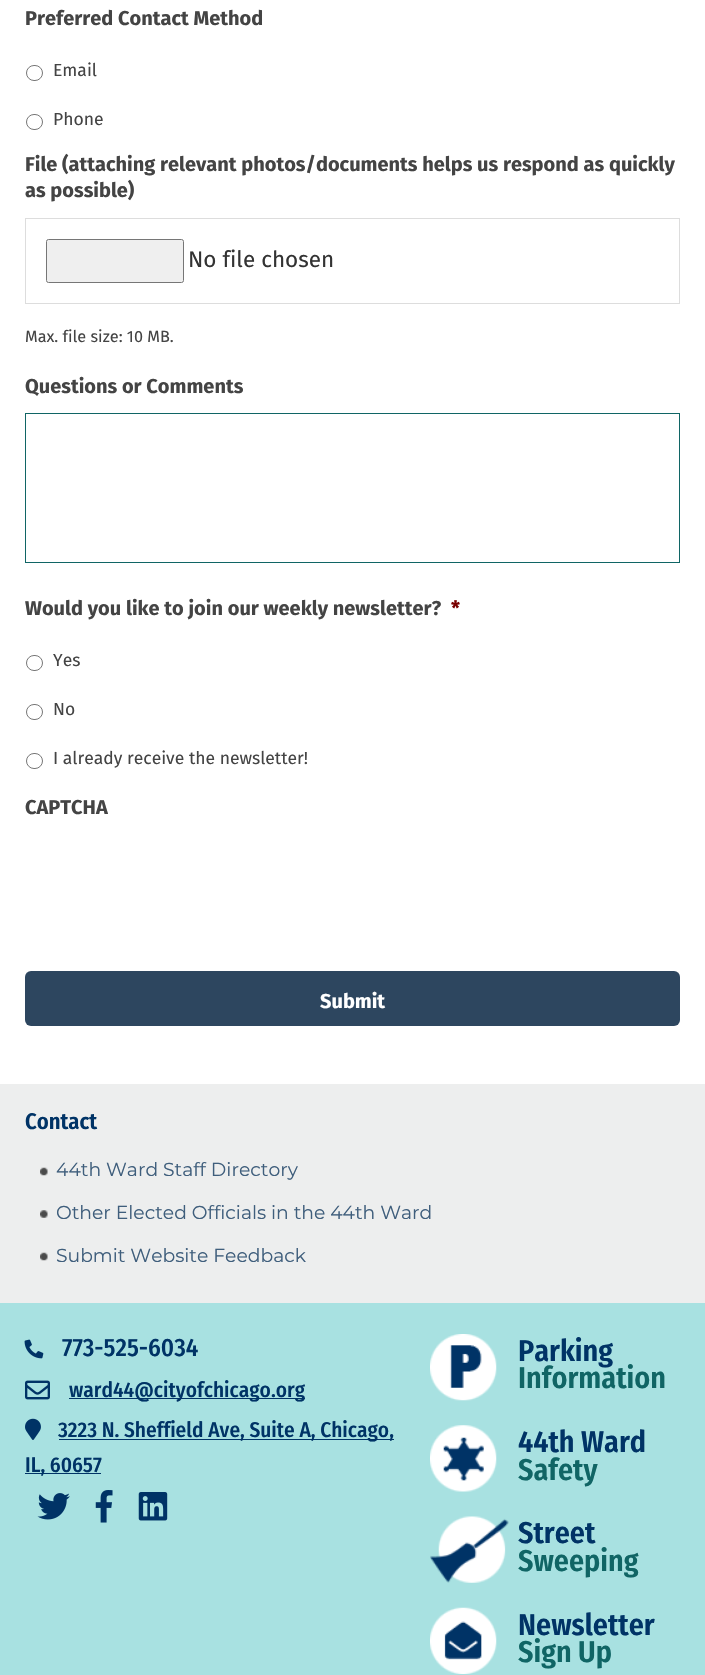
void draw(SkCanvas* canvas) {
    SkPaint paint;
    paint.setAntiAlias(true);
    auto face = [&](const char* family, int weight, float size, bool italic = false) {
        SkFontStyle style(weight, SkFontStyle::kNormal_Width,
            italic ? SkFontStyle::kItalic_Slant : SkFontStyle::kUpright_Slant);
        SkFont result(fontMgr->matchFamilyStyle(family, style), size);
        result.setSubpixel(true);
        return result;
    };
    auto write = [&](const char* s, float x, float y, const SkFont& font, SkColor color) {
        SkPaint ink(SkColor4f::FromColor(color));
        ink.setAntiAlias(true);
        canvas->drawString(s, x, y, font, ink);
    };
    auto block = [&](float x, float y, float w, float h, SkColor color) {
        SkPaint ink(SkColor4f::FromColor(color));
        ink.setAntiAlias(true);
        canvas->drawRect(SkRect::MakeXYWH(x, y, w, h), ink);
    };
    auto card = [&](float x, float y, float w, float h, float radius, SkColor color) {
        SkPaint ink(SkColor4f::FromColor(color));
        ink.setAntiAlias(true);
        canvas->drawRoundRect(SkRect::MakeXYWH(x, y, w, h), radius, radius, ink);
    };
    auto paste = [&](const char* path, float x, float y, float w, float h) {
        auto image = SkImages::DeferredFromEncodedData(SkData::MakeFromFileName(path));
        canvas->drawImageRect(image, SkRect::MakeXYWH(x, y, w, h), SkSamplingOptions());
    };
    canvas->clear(SK_ColorWHITE);
    auto kFont1 = face("Fira Sans", 700, 20);
    write("Preferred Contact Method", 25, 25, kFont1, SkColorSetRGB(68, 68, 68));
    paint.setStyle(SkPaint::kStroke_Style);
    paint.setStrokeWidth(1);
    paint.setColor(SkColorSetRGB(118, 118, 118));
    canvas->drawRoundRect(SkRect::MakeXYWH(26.5f, 65.5f, 16, 15), 7.5f, 7.5f, paint);
    auto kFont2 = face("Fira Sans", 400, 17.5f);
    write("Email", 53, 76, kFont2, SkColorSetRGB(68, 68, 68));
    canvas->drawRoundRect(SkRect::MakeXYWH(26.5f, 114.5f, 16, 15), 7.5f, 7.5f, paint);
    write("Phone", 53, 125, kFont2, SkColorSetRGB(68, 68, 68));
    write("File (attaching relevant photos/documents helps us respond as quickly", 25, 171, kFont1, SkColorSetRGB(68, 68, 68));
    write("as possible)", 25, 197, kFont1, SkColorSetRGB(68, 68, 68));
    paint.setColor(SkColorSetRGB(221, 221, 221));
    canvas->drawRect(SkRect::MakeXYWH(25.5f, 218.5f, 654, 85), paint);
    paint.setStyle(SkPaint::kFill_Style);
    paint.setColor(SkColorSetRGB(239, 239, 239));
    canvas->drawRoundRect(SkRect::MakeXYWH(46.5f, 239.5f, 137, 43), 2, 2, paint);
    paint.setStyle(SkPaint::kStroke_Style);
    paint.setColor(SkColorSetRGB(118, 118, 118));
    canvas->drawRoundRect(SkRect::MakeXYWH(46.5f, 239.5f, 137, 43), 2, 2, paint);
    auto kFont3 = face("Fira Sans", 400, 22.5f);
    write("No file chosen", 188, 267, kFont3, SkColorSetRGB(51, 51, 51));
    auto kFont4 = face("Fira Sans", 400, 16.25f);
    write("Max. file size: 10 MB.", 25, 342, kFont4, SkColorSetRGB(68, 68, 68));
    write("Questions or Comments", 25, 393, kFont1, SkColorSetRGB(68, 68, 68));
    paint.setColor(SkColorSetRGB(16, 101, 101));
    canvas->drawRect(SkRect::MakeXYWH(25.5f, 413.5f, 654, 149), paint);
    write("Would you like to join our weekly newsletter?", 25, 615, kFont1, SkColorSetRGB(68, 68, 68));
    write("*", 451, 615, kFont1, SkColorSetRGB(121, 0, 0));
    paint.setColor(SkColorSetRGB(118, 118, 118));
    canvas->drawRoundRect(SkRect::MakeXYWH(26.5f, 655.5f, 16, 15), 7.5f, 7.5f, paint);
    write("Yes", 53, 666, kFont2, SkColorSetRGB(68, 68, 68));
    canvas->drawRoundRect(SkRect::MakeXYWH(26.5f, 704.5f, 16, 15), 7.5f, 7.5f, paint);
    write("No", 53, 715, kFont2, SkColorSetRGB(68, 68, 68));
    canvas->drawRoundRect(SkRect::MakeXYWH(26.5f, 753.5f, 16, 15), 7.5f, 7.5f, paint);
    write("I already receive the newsletter!", 53, 764, kFont2, SkColorSetRGB(68, 68, 68));
    write("CAPTCHA", 25, 814, kFont1, SkColorSetRGB(68, 68, 68));
    card(25, 971, 655, 55, 6, SkColorSetRGB(45, 70, 95));
    write("Submit", 320, 1008, kFont1, SK_ColorWHITE);
    block(0, 1084, 705, 219, SkColorSetRGB(237, 238, 238));
    auto kFont5 = face("Fira Sans Condensed", 600, 22.5f);
    write("Contact", 25, 1129, kFont5, SkColorSetRGB(0, 51, 102));
    paste("pic1.png", 40, 1167, 8, 9);
    auto kFont6 = face("Montserrat", 400, 18.75f);
    write("44th Ward Staff Directory", 56, 1176, kFont6, SkColorSetRGB(63, 94, 124));
    paste("pic2.png", 40, 1210, 8, 8);
    write("Other Elected Officials in the 44th Ward", 56, 1219, kFont6, SkColorSetRGB(63, 94, 124));
    paste("pic1.png", 40, 1252, 8, 9);
    write("Submit Website Feedback", 56, 1262, kFont6, SkColorSetRGB(63, 94, 124));
    block(0, 1303, 705, 372, SkColorSetRGB(168, 225, 225));
    paste("pic3.png", 24, 1339, 20, 20);
    auto kFont7 = face("Fira Sans Condensed", 500, 25);
    write("773-525-6034", 62, 1356, kFont7, SkColorSetRGB(0, 51, 102));
    paste("pic4.png", 25, 1380, 25, 20);
    block(69, 1398, 236, 1, SkColorSetRGB(0, 51, 102));
    auto kFont8 = face("Fira Sans Condensed", 500, 21.25f);
    write("ward44@cityofchicago.org", 69, 1397, kFont8, SkColorSetRGB(0, 51, 102));
    paste("pic5.png", 25, 1418, 16, 22);
    block(59, 1439, 335, 1, SkColorSetRGB(0, 51, 102));
    write("3223 N. Sheffield Ave, Suite A, Chicago,", 58, 1437, kFont8, SkColorSetRGB(0, 51, 102));
    block(25, 1473, 76, 1, SkColorSetRGB(0, 51, 102));
    write("IL, 60657", 25, 1472, kFont8, SkColorSetRGB(0, 51, 102));
    paste("pic6.png", 37, 1493, 33, 27);
    paste("pic7.png", 95, 1490, 18, 33);
    paste("pic8.png", 138, 1492, 30, 29);
    paste("pic9.png", 430, 1334, 67, 67);
    auto kFont9 = face("Fira Sans Condensed", 600, 30);
    write("Parking", 518, 1361, kFont9, SkColorSetRGB(0, 51, 102));
    write("Information", 518, 1388, kFont9, SkColorSetRGB(16, 101, 101));
    paste("pic10.png", 430, 1425, 67, 67);
    write("44th Ward", 518, 1452, kFont9, SkColorSetRGB(0, 51, 102));
    write("Safety", 518, 1480, kFont9, SkColorSetRGB(16, 101, 101));
    paste("pic11.png", 430, 1516, 79, 67);
    write("Street", 518, 1543, kFont9, SkColorSetRGB(0, 51, 102));
    write("Sweeping", 518, 1571, kFont9, SkColorSetRGB(16, 101, 101));
    paste("pic12.png", 430, 1607, 67, 67);
    write("Newsletter", 518, 1635, kFont9, SkColorSetRGB(0, 51, 102));
    write("Sign Up", 518, 1662, kFont9, SkColorSetRGB(16, 101, 101));
}
